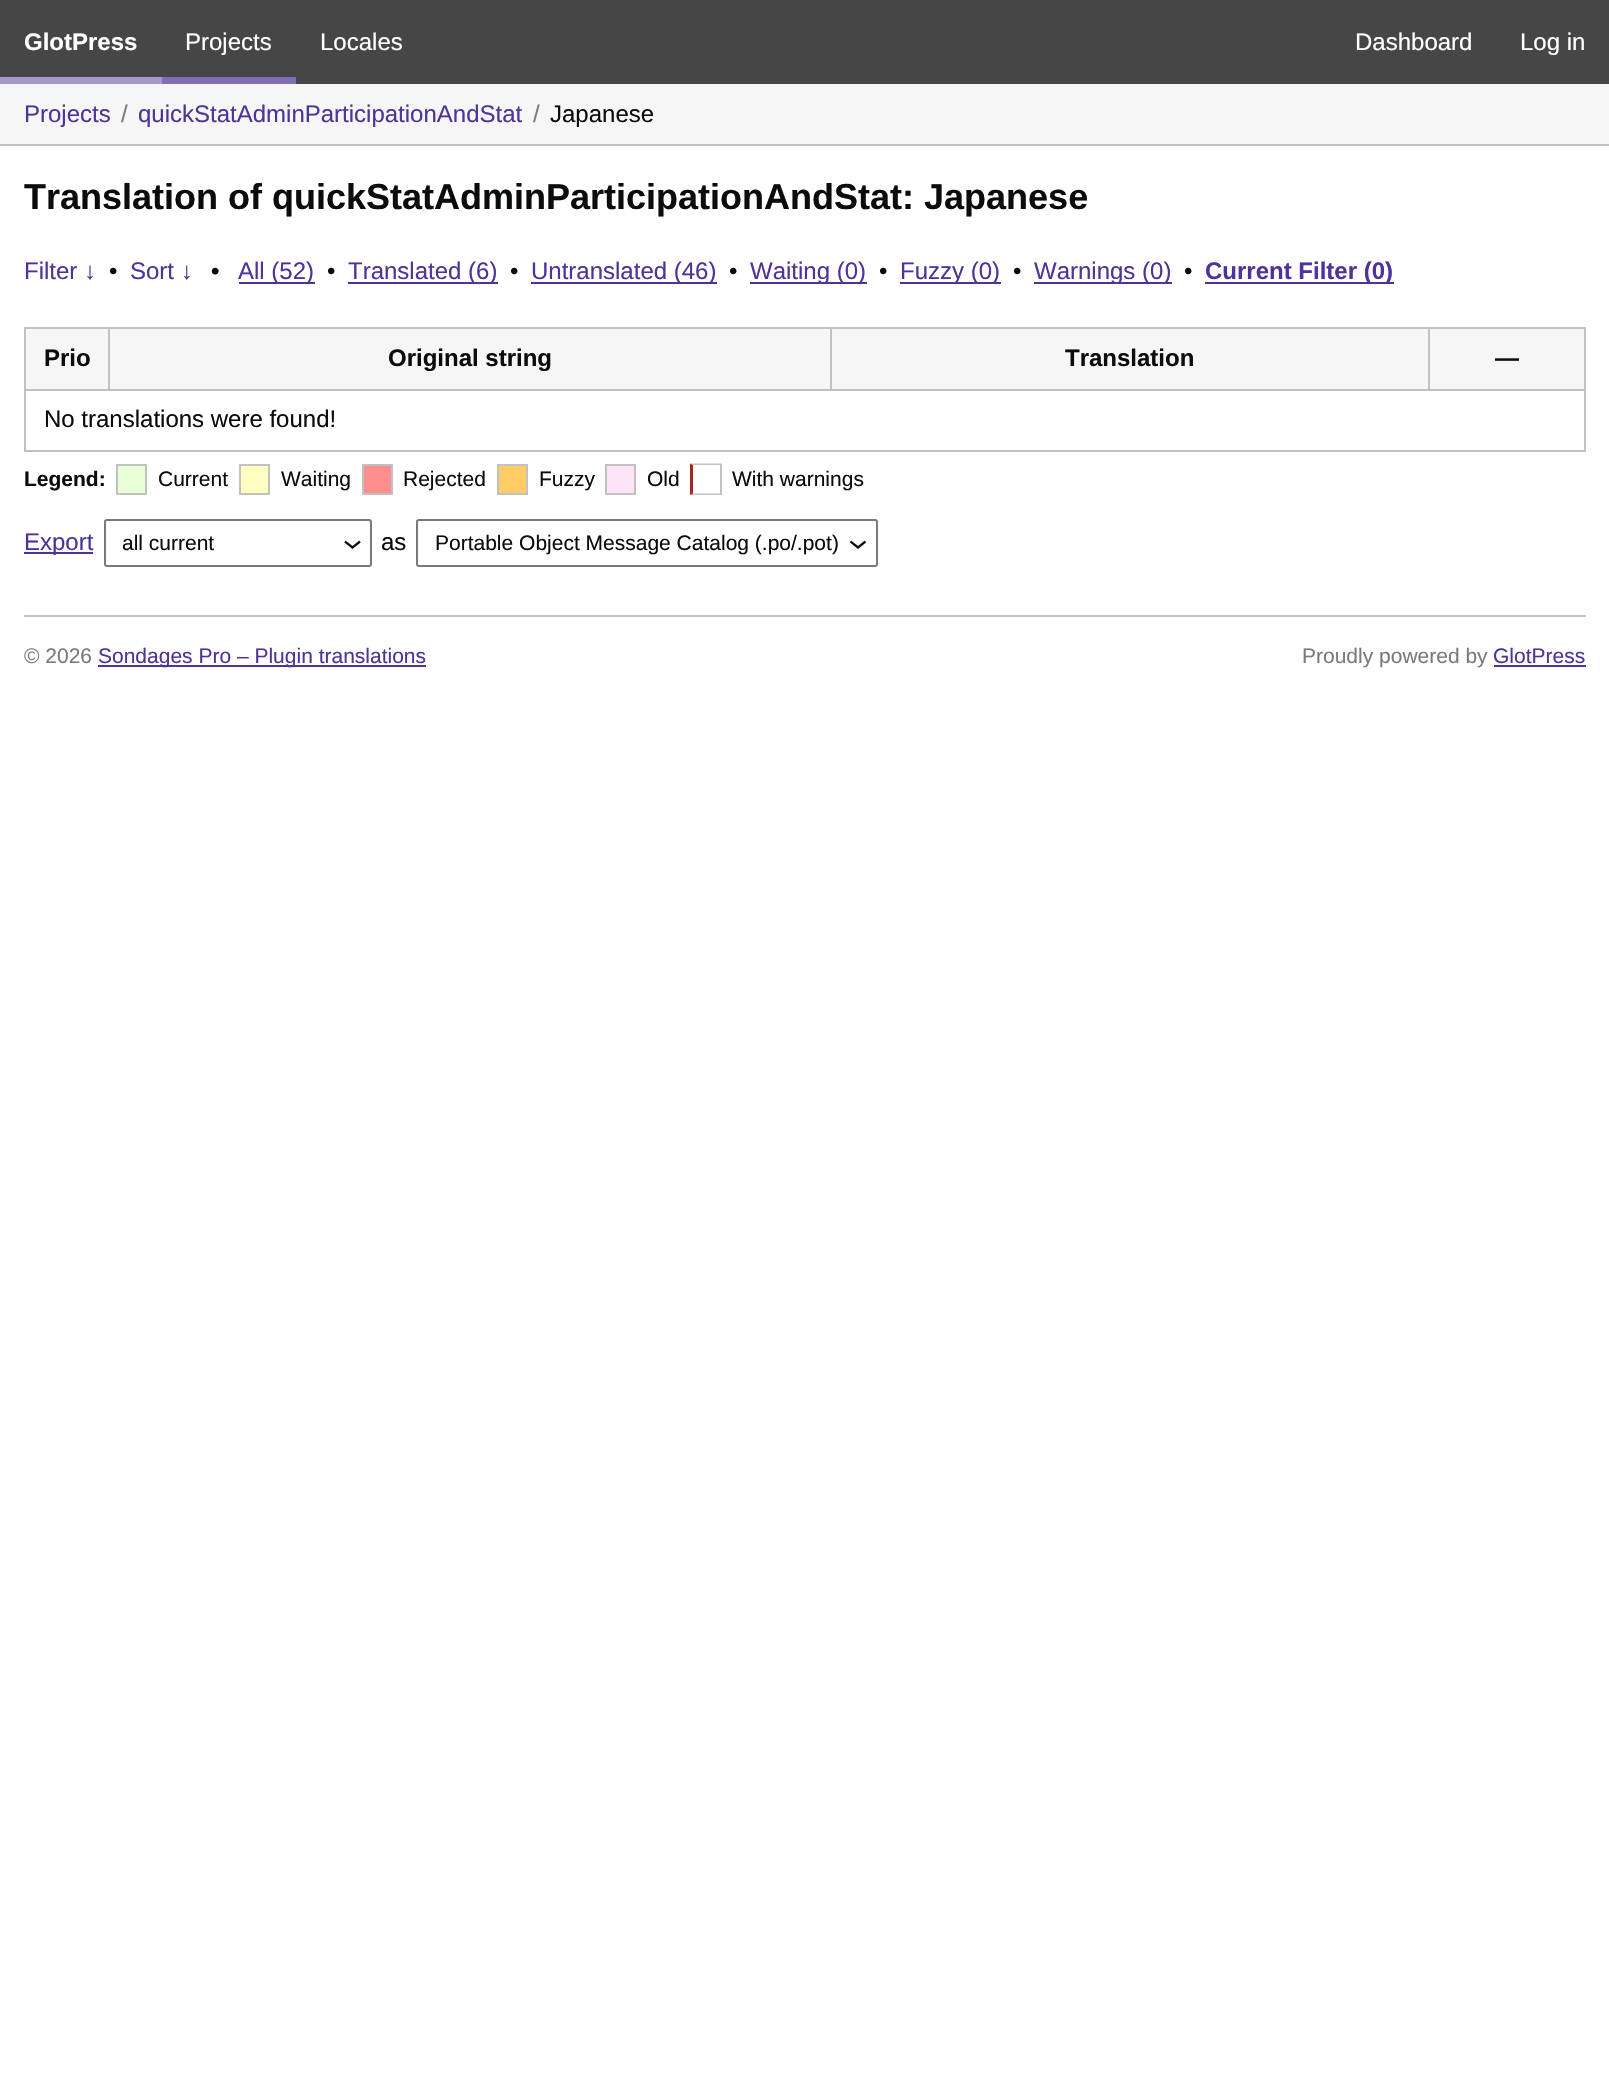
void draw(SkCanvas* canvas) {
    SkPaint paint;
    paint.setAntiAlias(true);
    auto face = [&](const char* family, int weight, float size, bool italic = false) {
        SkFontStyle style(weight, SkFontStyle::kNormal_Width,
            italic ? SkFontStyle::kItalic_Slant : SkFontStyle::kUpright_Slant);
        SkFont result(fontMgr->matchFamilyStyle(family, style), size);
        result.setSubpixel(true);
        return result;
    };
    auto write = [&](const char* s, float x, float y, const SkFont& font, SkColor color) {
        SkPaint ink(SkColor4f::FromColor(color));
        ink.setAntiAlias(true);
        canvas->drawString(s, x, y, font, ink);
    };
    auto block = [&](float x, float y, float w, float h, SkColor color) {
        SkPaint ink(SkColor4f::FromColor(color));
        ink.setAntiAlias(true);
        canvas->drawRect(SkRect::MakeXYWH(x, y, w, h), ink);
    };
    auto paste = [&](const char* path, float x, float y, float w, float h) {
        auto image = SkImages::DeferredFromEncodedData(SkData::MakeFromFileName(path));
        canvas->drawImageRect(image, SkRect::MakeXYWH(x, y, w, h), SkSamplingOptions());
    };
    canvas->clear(SK_ColorWHITE);
    block(0, 0, 1609, 84, SkColorSetRGB(70, 70, 70));
    block(0, 77, 162, 7, SkColorSetRGB(165, 151, 201));
    auto kFont1 = face("Liberation Sans", 700, 24);
    write("GlotPress", 24, 50, kFont1, SK_ColorWHITE);
    block(162, 77, 134, 7, SkColorSetRGB(130, 110, 180));
    auto kFont2 = face("Liberation Sans", 400, 24);
    write("Projects", 185, 50, kFont2, SK_ColorWHITE);
    write("Locales", 320, 50, kFont2, SK_ColorWHITE);
    write("Dashboard", 1355, 50, kFont2, SK_ColorWHITE);
    write("Log in", 1520, 50, kFont2, SK_ColorWHITE);
    block(0, 84, 1609, 60, SkColorSetRGB(246, 246, 246));
    block(0, 144, 1609, 2, SkColorSetRGB(193, 193, 193));
    write("Projects", 24, 122, kFont2, SkColorSetRGB(78, 52, 153));
    write("/", 121, 122, kFont2, SkColorSetRGB(122, 122, 122));
    write("quickStatAdminParticipationAndStat", 138, 122, kFont2, SkColorSetRGB(78, 52, 153));
    write("/", 533, 122, kFont2, SkColorSetRGB(122, 122, 122));
    write("Japanese", 550, 122, kFont2, SkColorSetRGB(11, 12, 12));
    auto kFont3 = face("Liberation Sans", 700, 36);
    write("Translation of quickStatAdminParticipationAndStat: Japanese", 24, 209, kFont3, SkColorSetRGB(11, 12, 12));
    write("Filter ↓", 24, 279, kFont2, SkColorSetRGB(78, 52, 153));
    write("•", 109, 279, kFont2, SkColorSetRGB(11, 12, 12));
    write("Sort ↓", 130, 279, kFont2, SkColorSetRGB(78, 52, 153));
    write("•", 211, 279, kFont1, SkColorSetRGB(11, 12, 12));
    block(239, 282, 76, 2, SkColorSetRGB(78, 52, 153));
    write("All (52)", 238, 279, kFont2, SkColorSetRGB(78, 52, 153));
    write("•", 327, 279, kFont2, SkColorSetRGB(11, 12, 12));
    block(348, 282, 150, 2, SkColorSetRGB(78, 52, 153));
    write("Translated (6)", 348, 279, kFont2, SkColorSetRGB(78, 52, 153));
    write("•", 510, 279, kFont2, SkColorSetRGB(11, 12, 12));
    block(531, 282, 186, 2, SkColorSetRGB(78, 52, 153));
    write("Untranslated (46)", 531, 279, kFont2, SkColorSetRGB(78, 52, 153));
    write("•", 729, 279, kFont2, SkColorSetRGB(11, 12, 12));
    block(750, 282, 117, 2, SkColorSetRGB(78, 52, 153));
    write("Waiting (0)", 750, 279, kFont2, SkColorSetRGB(78, 52, 153));
    write("•", 879, 279, kFont2, SkColorSetRGB(11, 12, 12));
    block(900, 282, 101, 2, SkColorSetRGB(78, 52, 153));
    write("Fuzzy (0)", 900, 279, kFont2, SkColorSetRGB(78, 52, 153));
    write("•", 1013, 279, kFont2, SkColorSetRGB(11, 12, 12));
    block(1034, 282, 138, 2, SkColorSetRGB(78, 52, 153));
    write("Warnings (0)", 1034, 279, kFont2, SkColorSetRGB(78, 52, 153));
    write("•", 1184, 279, kFont2, SkColorSetRGB(11, 12, 12));
    block(1205, 282, 189, 2, SkColorSetRGB(78, 52, 153));
    write("Current Filter (0)", 1205, 279, kFont1, SkColorSetRGB(78, 52, 153));
    block(24, 327, 1562, 2, SkColorSetRGB(193, 193, 193));
    block(1584, 327, 2, 125, SkColorSetRGB(193, 193, 193));
    block(24, 450, 1562, 2, SkColorSetRGB(193, 193, 193));
    block(24, 327, 2, 125, SkColorSetRGB(193, 193, 193));
    block(26, 329, 82, 60, SkColorSetRGB(246, 246, 246));
    block(1428, 389, 158, 2, SkColorSetRGB(193, 193, 193));
    block(1428, 327, 2, 63, SkColorSetRGB(193, 193, 193));
    block(830, 389, 600, 2, SkColorSetRGB(193, 193, 193));
    block(830, 327, 2, 63, SkColorSetRGB(193, 193, 193));
    block(108, 389, 723, 2, SkColorSetRGB(193, 193, 193));
    block(108, 327, 2, 63, SkColorSetRGB(193, 193, 193));
    block(24, 389, 86, 2, SkColorSetRGB(193, 193, 193));
    write("Prio", 44, 366, kFont1, SkColorSetRGB(11, 12, 12));
    block(110, 329, 720, 60, SkColorSetRGB(246, 246, 246));
    write("Original string", 388, 366, kFont1, SkColorSetRGB(11, 12, 12));
    block(832, 329, 596, 60, SkColorSetRGB(246, 246, 246));
    write("Translation", 1065, 366, kFont1, SkColorSetRGB(11, 12, 12));
    block(1430, 329, 154, 60, SkColorSetRGB(246, 246, 246));
    write("—", 1495, 366, kFont1, SkColorSetRGB(11, 12, 12));
    write("No translations were found!", 44, 427, kFont2, SkColorSetRGB(11, 12, 12));
    auto kFont4 = face("Liberation Sans", 700, 21);
    write("Legend:", 24, 486, kFont4, SkColorSetRGB(11, 12, 12));
    paint.setColor(SkColorSetRGB(233, 255, 216));
    canvas->drawRect(SkRect::MakeXYWH(117, 465, 29, 29), paint);
    paint.setStyle(SkPaint::kStroke_Style);
    paint.setStrokeWidth(2);
    paint.setColor(SkColorSetRGB(193, 193, 193));
    canvas->drawRect(SkRect::MakeXYWH(117, 465, 29, 29), paint);
    auto kFont5 = face("Liberation Sans", 400, 21);
    write("Current", 158, 486, kFont5, SkColorSetRGB(11, 12, 12));
    paint.setStyle(SkPaint::kFill_Style);
    paint.setColor(SkColorSetRGB(255, 255, 194));
    canvas->drawRect(SkRect::MakeXYWH(240, 465, 29, 29), paint);
    paint.setStyle(SkPaint::kStroke_Style);
    paint.setColor(SkColorSetRGB(193, 193, 193));
    canvas->drawRect(SkRect::MakeXYWH(240, 465, 29, 29), paint);
    write("Waiting", 281, 486, kFont5, SkColorSetRGB(11, 12, 12));
    paint.setStyle(SkPaint::kFill_Style);
    paint.setColor(SkColorSetRGB(255, 142, 142));
    canvas->drawRect(SkRect::MakeXYWH(363, 465, 29, 29), paint);
    paint.setStyle(SkPaint::kStroke_Style);
    paint.setColor(SkColorSetRGB(193, 193, 193));
    canvas->drawRect(SkRect::MakeXYWH(363, 465, 29, 29), paint);
    write("Rejected", 403, 486, kFont5, SkColorSetRGB(11, 12, 12));
    paint.setStyle(SkPaint::kFill_Style);
    paint.setColor(SkColorSetRGB(255, 204, 102));
    canvas->drawRect(SkRect::MakeXYWH(498, 465, 29, 29), paint);
    paint.setStyle(SkPaint::kStroke_Style);
    paint.setColor(SkColorSetRGB(193, 193, 193));
    canvas->drawRect(SkRect::MakeXYWH(498, 465, 29, 29), paint);
    write("Fuzzy", 539, 486, kFont5, SkColorSetRGB(11, 12, 12));
    paint.setStyle(SkPaint::kFill_Style);
    paint.setColor(SkColorSetRGB(254, 228, 248));
    canvas->drawRect(SkRect::MakeXYWH(606, 465, 29, 29), paint);
    paint.setStyle(SkPaint::kStroke_Style);
    paint.setColor(SkColorSetRGB(193, 193, 193));
    canvas->drawRect(SkRect::MakeXYWH(606, 465, 29, 29), paint);
    write("Old", 647, 486, kFont5, SkColorSetRGB(11, 12, 12));
    paint.setStyle(SkPaint::kFill_Style);
    canvas->drawPath(SkPathBuilder().moveTo(690, 463.5f).lineTo(721.5f, 463.5f).lineTo(720, 465).lineTo(693, 465).close().detach(), paint);
    block(720, 464, 2, 31, SkColorSetRGB(193, 193, 193));
    canvas->drawPath(SkPathBuilder().moveTo(721.5f, 495).lineTo(690, 495).lineTo(693, 493.5f).lineTo(720, 493.5f).close().detach(), paint);
    paint.setColor(SkColorSetRGB(166, 38, 38));
    canvas->drawPath(SkPathBuilder().moveTo(690, 495).lineTo(690, 463.5f).lineTo(693, 465).lineTo(693, 493.5f).close().detach(), paint);
    write("With warnings", 732, 486, kFont5, SkColorSetRGB(11, 12, 12));
    block(24, 552, 69, 2, SkColorSetRGB(78, 52, 153));
    write("Export", 24, 550, kFont2, SkColorSetRGB(78, 52, 153));
    paste("pic1.png", 344, 540, 17, 9);
    paint.setStyle(SkPaint::kStroke_Style);
    paint.setColor(SkColorSetRGB(122, 122, 122));
    canvas->drawRoundRect(SkRect::MakeXYWH(105, 520, 266, 46), 2, 2, paint);
    write("all current", 122, 550, kFont5, SkColorSetRGB(11, 12, 12));
    write("as", 381, 550, kFont2, SkColorSetRGB(11, 12, 12));
    paste("pic2.png", 849, 540, 18, 9);
    canvas->drawRoundRect(SkRect::MakeXYWH(417, 520, 460, 46), 2, 2, paint);
    write("Portable Object Message Catalog (.po/.pot)", 435, 550, kFont5, SkColorSetRGB(11, 12, 12));
    block(24, 615, 1562, 2, SkColorSetRGB(193, 193, 193));
    write("© 2026", 24, 663, kFont5, SkColorSetRGB(122, 122, 122));
    block(98, 665, 328, 2, SkColorSetRGB(78, 52, 153));
    write("Sondages Pro – Plugin translations", 98, 663, kFont5, SkColorSetRGB(78, 52, 153));
    write("Proudly powered by", 1302, 663, kFont5, SkColorSetRGB(122, 122, 122));
    write("GlotPress", 1493, 663, kFont5, SkColorSetRGB(78, 52, 153));
    block(1494, 665, 92, 2, SkColorSetRGB(78, 52, 153));
}
